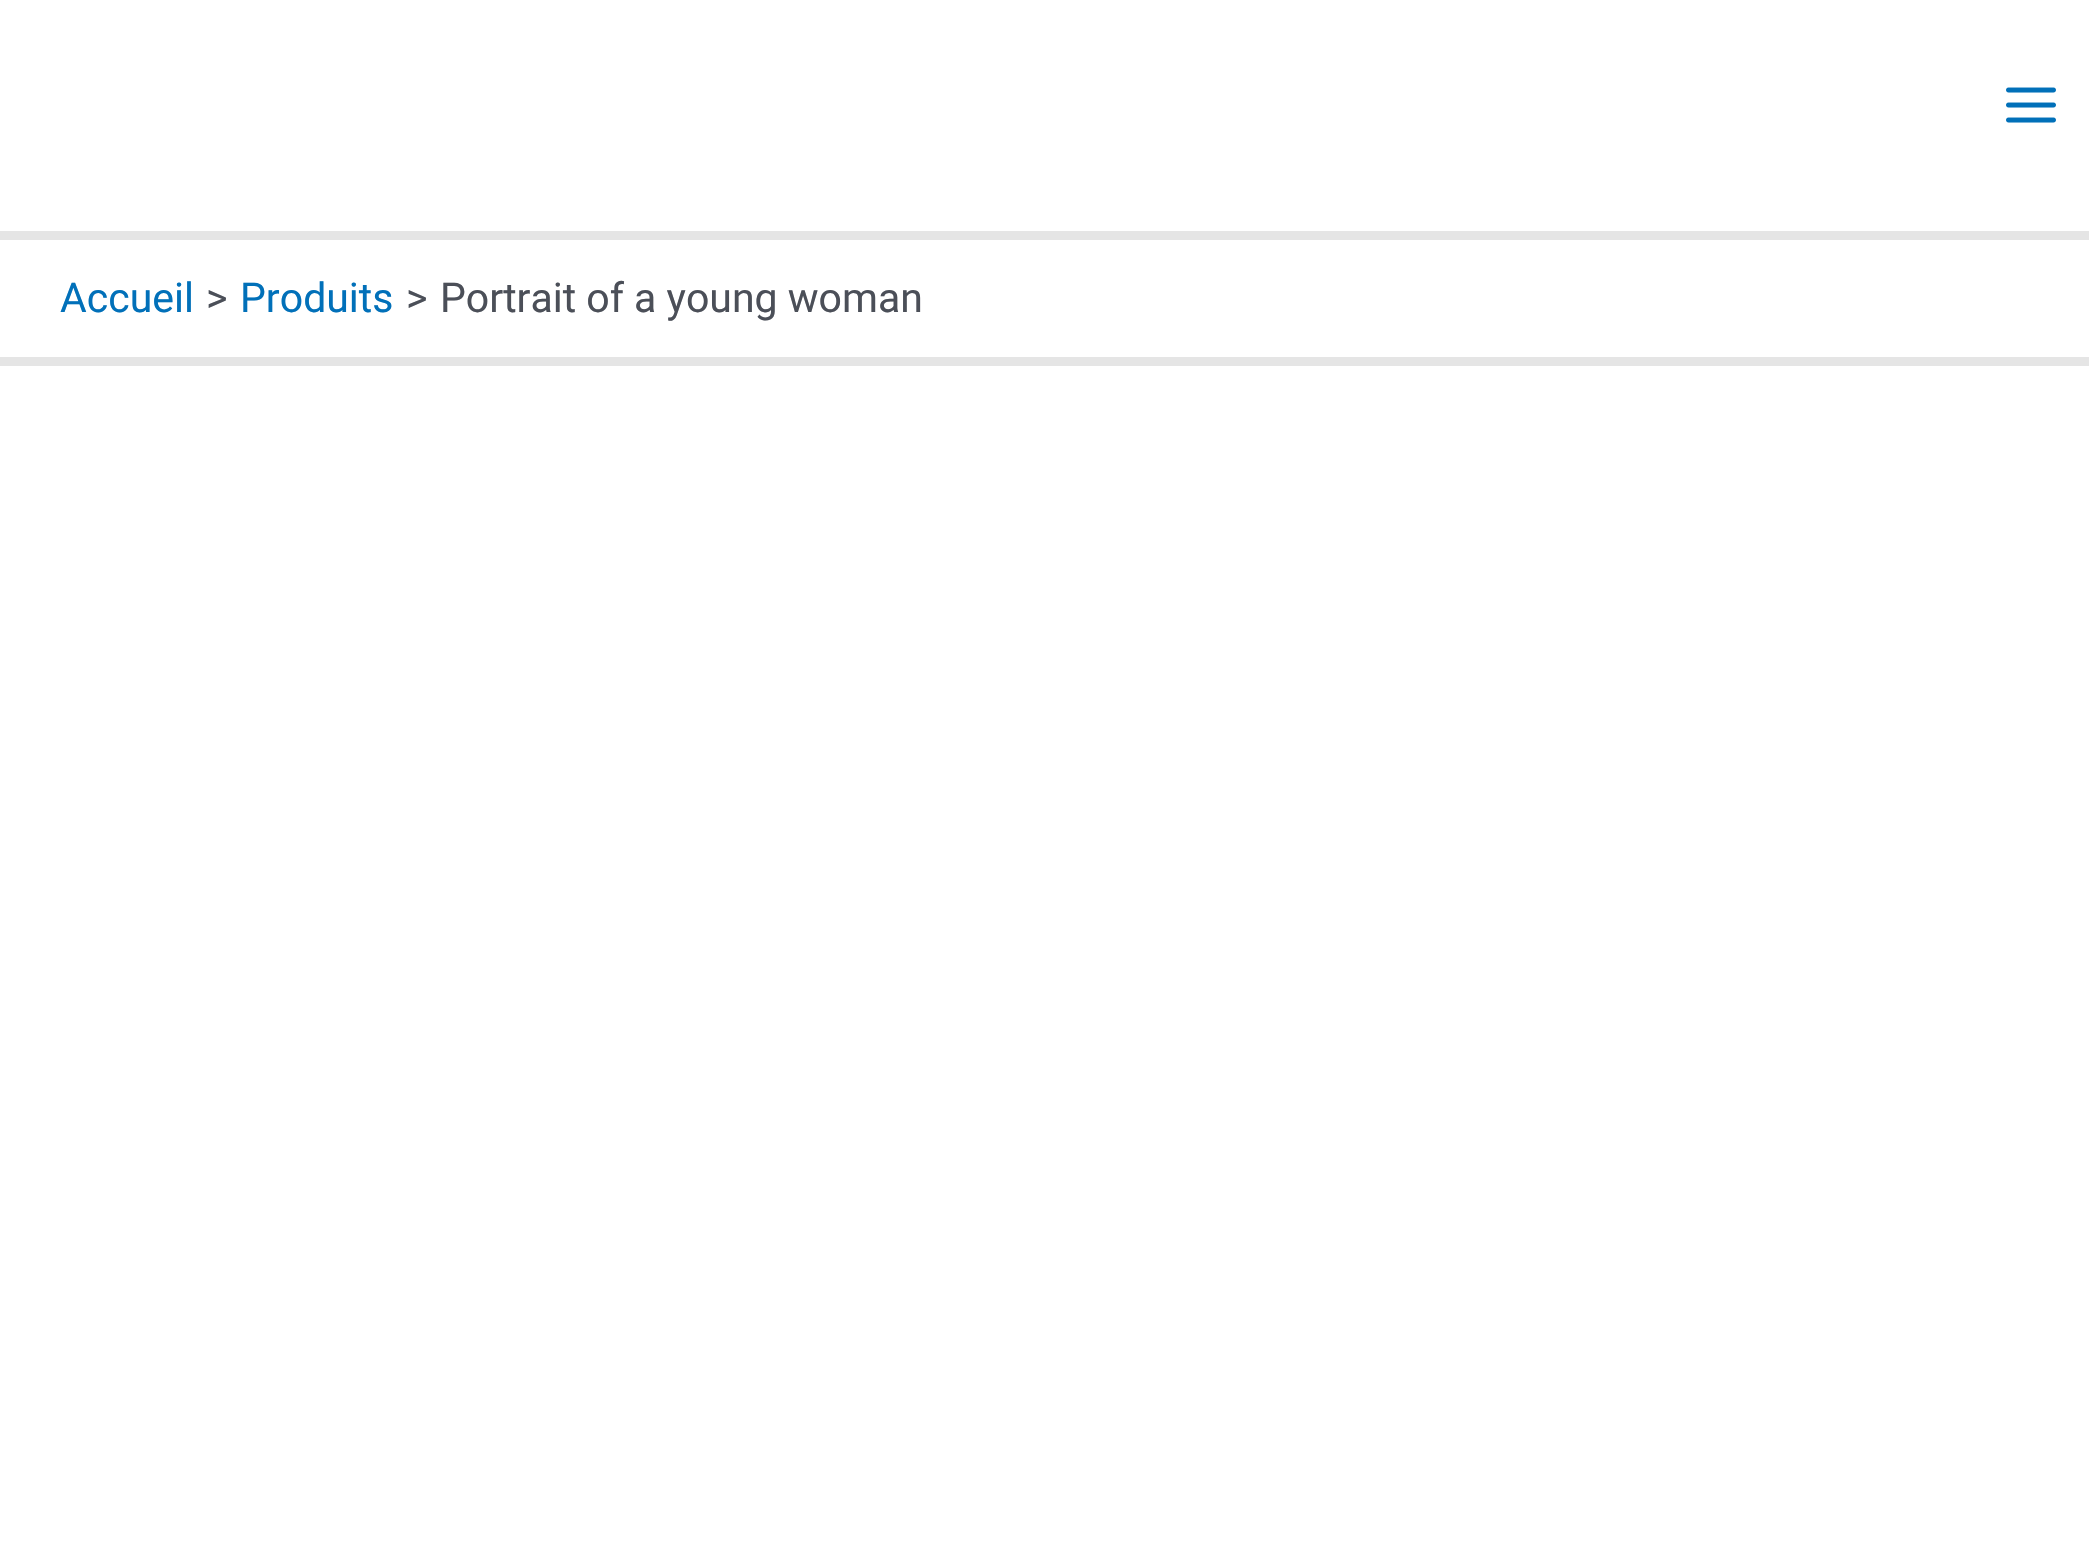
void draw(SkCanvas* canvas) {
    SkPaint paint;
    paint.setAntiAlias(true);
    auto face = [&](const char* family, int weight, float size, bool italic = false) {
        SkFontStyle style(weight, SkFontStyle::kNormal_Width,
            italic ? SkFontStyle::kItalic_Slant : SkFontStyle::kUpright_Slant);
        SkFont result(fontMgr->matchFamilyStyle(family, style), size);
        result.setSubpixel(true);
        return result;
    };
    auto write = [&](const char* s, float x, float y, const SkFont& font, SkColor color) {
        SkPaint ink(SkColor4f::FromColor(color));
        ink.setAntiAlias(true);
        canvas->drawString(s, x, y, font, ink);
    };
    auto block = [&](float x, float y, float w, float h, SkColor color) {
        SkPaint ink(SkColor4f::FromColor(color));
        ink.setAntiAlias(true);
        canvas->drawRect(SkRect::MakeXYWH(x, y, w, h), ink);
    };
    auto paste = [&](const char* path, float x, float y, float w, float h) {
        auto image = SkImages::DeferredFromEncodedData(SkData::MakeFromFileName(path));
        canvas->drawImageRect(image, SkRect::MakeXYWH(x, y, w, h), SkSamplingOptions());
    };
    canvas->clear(SK_ColorWHITE);
    block(0, 231, 2089, 9, SkColorSetRGB(229, 229, 229));
    paste("pic1.png", 2006, 87, 50, 36);
    block(0, 357, 2089, 9, SkColorSetRGB(229, 229, 229));
    auto kFont1 = face("Roboto", 400, 41);
    write("Accueil", 60, 312, kFont1, SkColorSetRGB(1, 112, 185));
    write(">", 206, 312, kFont1, SkColorSetRGB(75, 79, 88));
    write("Produits", 240, 312, kFont1, SkColorSetRGB(1, 112, 185));
    write(">", 406, 312, kFont1, SkColorSetRGB(75, 79, 88));
    write("Portrait of a young woman", 440, 312, kFont1, SkColorSetRGB(75, 79, 88));
}
